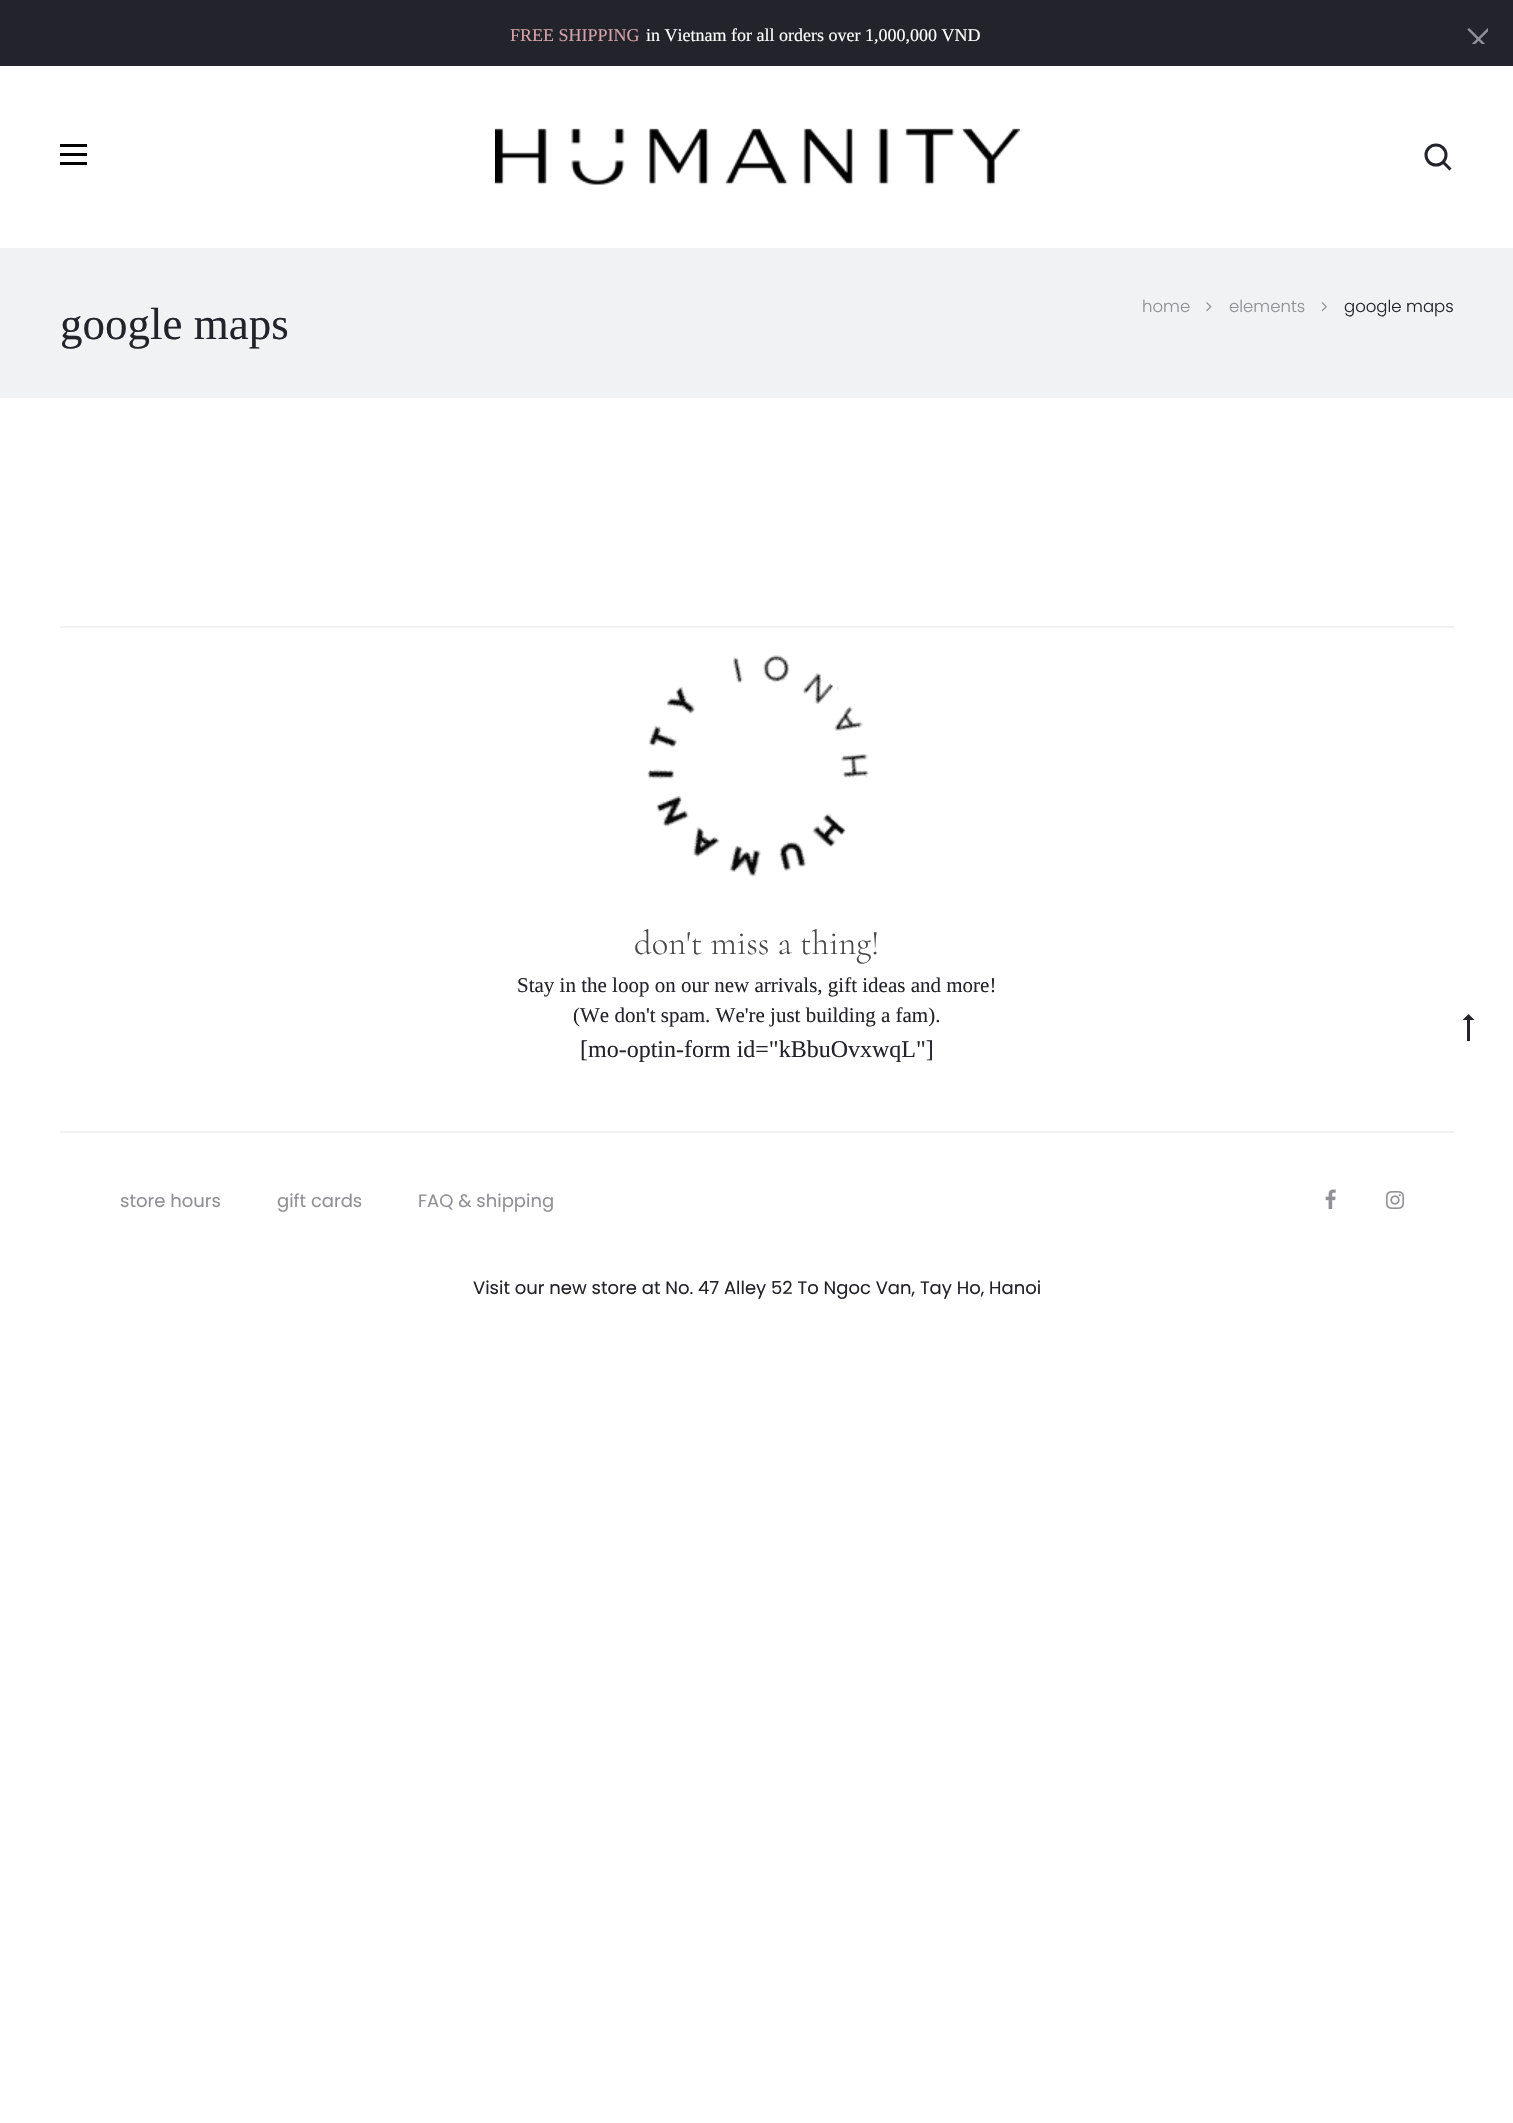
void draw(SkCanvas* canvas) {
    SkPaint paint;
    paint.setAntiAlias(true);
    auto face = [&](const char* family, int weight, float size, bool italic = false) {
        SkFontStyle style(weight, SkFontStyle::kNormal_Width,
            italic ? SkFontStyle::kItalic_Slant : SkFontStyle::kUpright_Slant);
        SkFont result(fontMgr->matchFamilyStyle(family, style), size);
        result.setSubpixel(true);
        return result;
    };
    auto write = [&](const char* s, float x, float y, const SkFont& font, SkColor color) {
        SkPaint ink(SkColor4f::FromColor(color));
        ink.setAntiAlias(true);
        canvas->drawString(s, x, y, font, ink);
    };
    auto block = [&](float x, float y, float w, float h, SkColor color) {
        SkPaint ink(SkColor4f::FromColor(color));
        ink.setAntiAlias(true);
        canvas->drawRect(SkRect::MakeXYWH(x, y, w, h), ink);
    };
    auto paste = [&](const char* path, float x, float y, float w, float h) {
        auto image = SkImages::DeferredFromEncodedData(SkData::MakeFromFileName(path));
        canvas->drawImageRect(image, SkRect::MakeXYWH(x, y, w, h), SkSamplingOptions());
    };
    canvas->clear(SK_ColorWHITE);
    block(0, 0, 1513, 66, SkColorSetRGB(35, 35, 44));
    auto kFont1 = face("Liberation Serif", 400, 18);
    write("FREE SHIPPING", 510, 41, kFont1, SkColorSetRGB(213, 162, 167));
    write("in Vietnam for all orders over 1,000,000 VND", 646, 41, kFont1, SK_ColorWHITE);
    paste("pic1.png", 1467, 28, 21, 16);
    block(60, 153, 27, 3, SK_ColorBLACK);
    block(60, 144, 27, 3, SK_ColorBLACK);
    block(60, 162, 27, 3, SK_ColorBLACK);
    paste("pic2.png", 495, 128, 525, 57);
    paint.setStyle(SkPaint::kStroke_Style);
    paint.setStrokeWidth(3);
    paint.setColor(SkColorSetRGB(35, 35, 44));
    canvas->drawCircle(1436, 155, 10, paint);
    canvas->drawPath(SkPathBuilder().moveTo(1443, 162).lineTo(1450.5f, 169.5f).detach(), paint);
    block(0, 248, 1513, 150, SkColorSetRGB(241, 242, 244));
    auto kFont2 = face("Liberation Serif", 400, 45);
    write("google maps", 60, 339, kFont2, SkColorSetRGB(35, 35, 44));
    auto kFont3 = face("Poppins", 300, 16.5f);
    write("home", 1142, 312, kFont3, SkColorSetRGB(144, 144, 151));
    paste("pic3.png", 1206, 302, 6, 10);
    write("elements", 1229, 312, kFont3, SkColorSetRGB(144, 144, 151));
    paste("pic4.png", 1321, 302, 6, 10);
    write("google maps", 1344, 312, kFont3, SkColorSetRGB(35, 35, 44));
    block(60, 626, 1394, 2, SkColorSetRGB(241, 242, 244));
    paste("pic5.png", 647, 655, 222, 222);
    auto kFont4 = face("Cormorant", 300, 34.5f);
    write("don't miss a thing!", 634, 954, kFont4, SkColorSetRGB(72, 72, 72));
    auto kFont5 = face("Liberation Serif", 400, 21);
    write("Stay in the loop on our new arrivals, gift ideas and more!", 517, 992, kFont5, SkColorSetRGB(35, 35, 44));
    write("(We don't spam. We're just building a fam).", 573, 1022, kFont5, SkColorSetRGB(35, 35, 44));
    auto kFont6 = face("Liberation Serif", 400, 24);
    write("[mo-optin-form id=\"kBbuOvxwqL\"]", 580, 1057, kFont6, SkColorSetRGB(35, 35, 44));
    block(60, 1131, 1394, 2, SkColorSetRGB(241, 242, 244));
    auto kFont7 = face("Poppins", 400, 18);
    write("store hours", 120, 1207, kFont7, SkColorSetRGB(144, 144, 151));
    write("gift cards", 277, 1207, kFont7, SkColorSetRGB(144, 144, 151));
    write("FAQ & shipping", 418, 1207, kFont7, SkColorSetRGB(144, 144, 151));
    paste("pic6.png", 1325, 1189, 11, 20);
    paste("pic7.png", 1386, 1191, 18, 18);
    write("Visit our new store at No. 47 Alley 52 To Ngoc Van, Tay Ho, Hanoi", 473, 1294, kFont7, SkColorSetRGB(35, 35, 44));
    paint.setStyle(SkPaint::kFill_Style);
    canvas->drawPath(SkPathBuilder().moveTo(1467, 1020).lineTo(1467, 1041).lineTo(1470, 1041).lineTo(1470, 1020).lineTo(1474.5f, 1020).lineTo(1468.5f, 1014).lineTo(1462.5f, 1020).close().detach(), paint);
}
